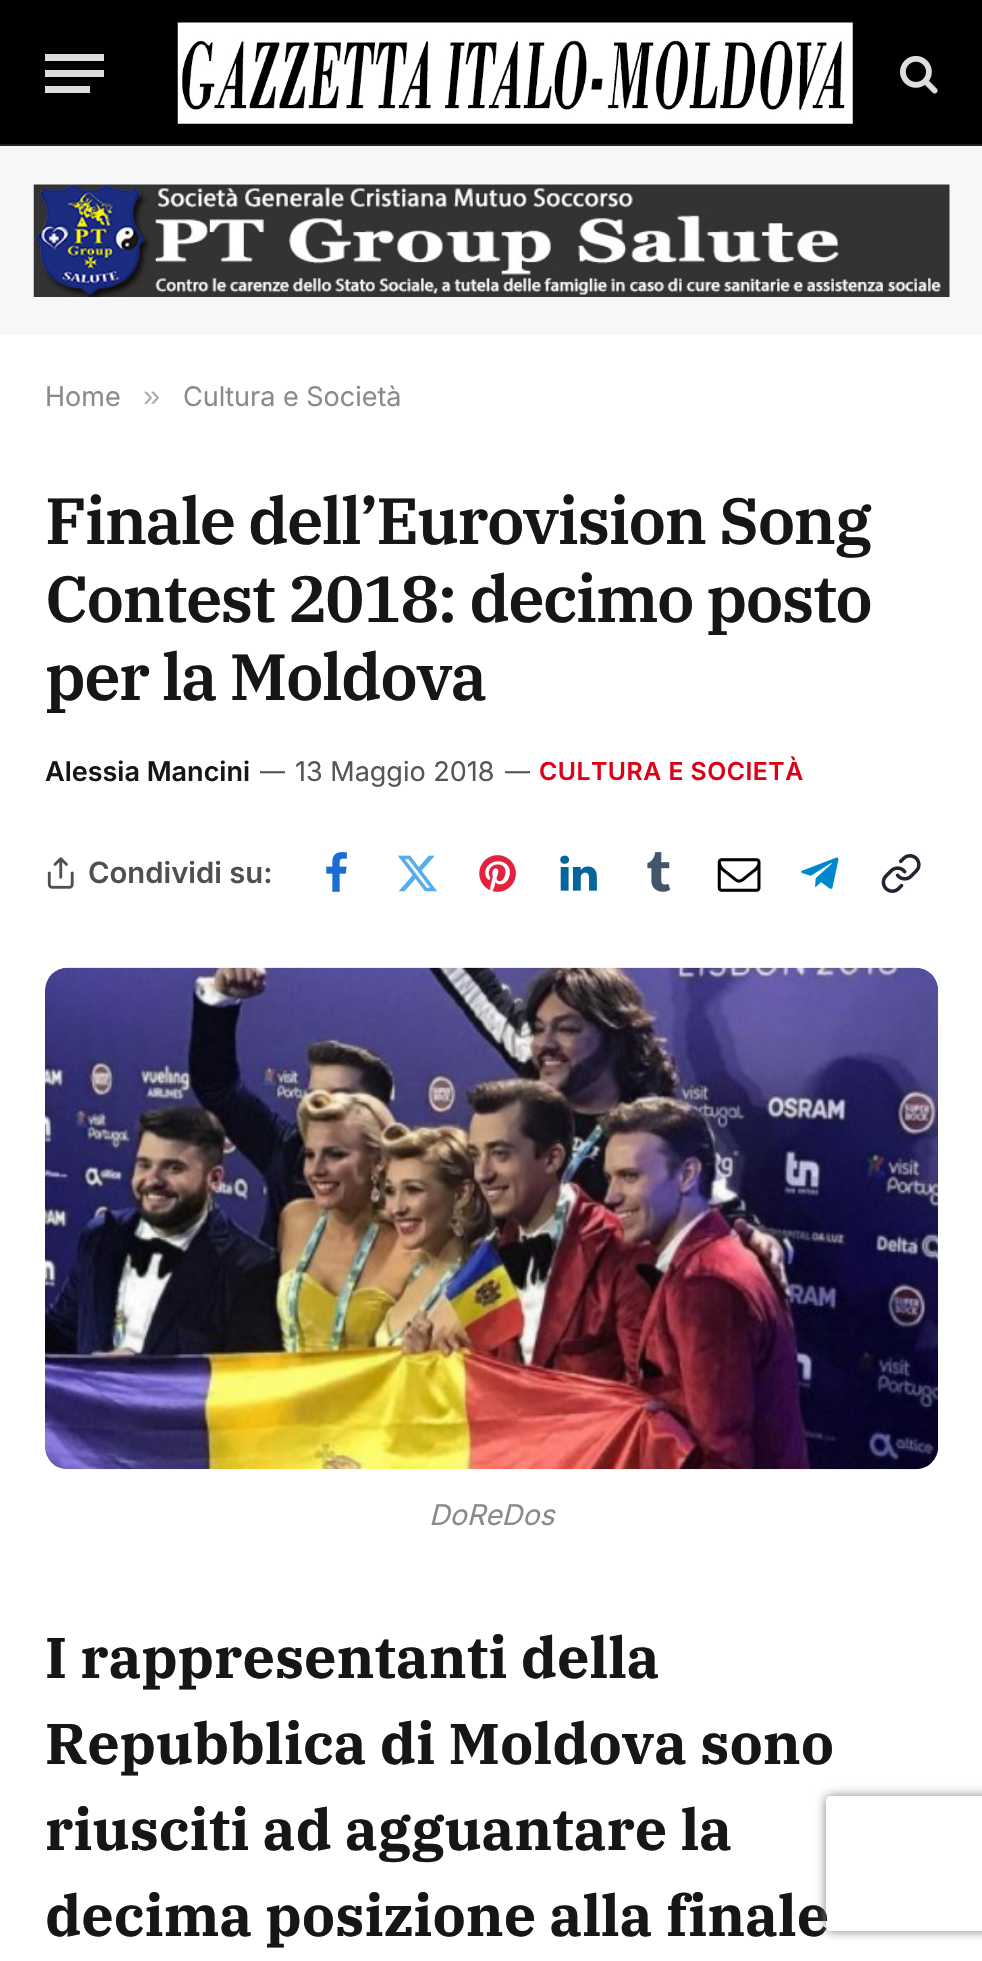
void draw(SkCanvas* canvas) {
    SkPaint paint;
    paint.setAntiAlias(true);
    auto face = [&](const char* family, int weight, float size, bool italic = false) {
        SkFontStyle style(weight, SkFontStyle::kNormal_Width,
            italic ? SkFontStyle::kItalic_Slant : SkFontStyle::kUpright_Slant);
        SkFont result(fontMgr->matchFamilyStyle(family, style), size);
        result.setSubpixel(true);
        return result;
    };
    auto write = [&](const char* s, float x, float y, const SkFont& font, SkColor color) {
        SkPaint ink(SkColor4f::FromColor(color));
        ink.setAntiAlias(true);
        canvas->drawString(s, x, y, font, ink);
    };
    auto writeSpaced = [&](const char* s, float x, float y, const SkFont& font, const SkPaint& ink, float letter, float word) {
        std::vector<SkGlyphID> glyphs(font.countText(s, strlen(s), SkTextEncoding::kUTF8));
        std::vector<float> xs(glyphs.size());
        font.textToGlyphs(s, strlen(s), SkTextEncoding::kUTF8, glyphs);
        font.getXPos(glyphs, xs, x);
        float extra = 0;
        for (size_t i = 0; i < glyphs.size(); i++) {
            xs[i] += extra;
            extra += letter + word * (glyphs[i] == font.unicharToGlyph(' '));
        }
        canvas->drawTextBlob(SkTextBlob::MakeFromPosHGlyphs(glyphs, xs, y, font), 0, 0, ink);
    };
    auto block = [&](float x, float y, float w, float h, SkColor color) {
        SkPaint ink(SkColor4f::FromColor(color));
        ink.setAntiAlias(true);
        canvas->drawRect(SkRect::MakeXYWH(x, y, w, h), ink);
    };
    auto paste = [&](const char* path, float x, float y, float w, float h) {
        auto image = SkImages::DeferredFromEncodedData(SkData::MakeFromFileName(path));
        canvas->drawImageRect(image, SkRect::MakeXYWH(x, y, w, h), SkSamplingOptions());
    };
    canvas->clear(SK_ColorWHITE);
    block(0, 0, 982, 144, SK_ColorBLACK);
    block(0, 144, 982, 2, SkColorSetRGB(34, 34, 34));
    block(45, 86, 45, 7, SkColorSetRGB(221, 221, 221));
    block(45, 54, 59, 7, SkColorSetRGB(221, 221, 221));
    block(45, 70, 59, 7, SkColorSetRGB(221, 221, 221));
    paste("pic1.png", 177, 22, 676, 102);
    paste("pic2.png", 900, 55, 38, 39);
    block(0, 146, 982, 189, SkColorSetRGB(247, 247, 247));
    paste("pic3.png", 33, 184, 917, 113);
    auto kFont1 = face("Inter", 400, 27);
    write("Home", 45, 406, kFont1, SkColorSetRGB(138, 138, 138));
    auto kFont2 = face("Liberation Sans", 400, 31);
    write("»", 143, 406, kFont2, SkColorSetRGB(173, 173, 173));
    write("Cultura e Società", 183, 406, kFont1, SkColorSetRGB(138, 138, 138));
    auto kFont3 = face("IBM Plex Serif", 600, 65.25f);
    paint.setColor(SkColorSetRGB(22, 22, 22));
    writeSpaced("Finale dell’Eurovision Song", 45, 544, kFont3, paint, -1.6f, 0);
    writeSpaced("Contest 2018: decimo posto", 45, 622, kFont3, paint, -1.6f, 0);
    writeSpaced("per la Moldova", 45, 700, kFont3, paint, -1.6f, 0);
    auto kFont4 = face("Inter", 600, 27);
    write("Alessia Mancini", 45, 781, kFont4, SkColorSetRGB(22, 22, 22));
    auto kFont5 = face("Inter", 400, 25);
    write("—", 260, 780, kFont5, SkColorSetRGB(86, 86, 86));
    write("13 Maggio 2018", 295, 781, kFont1, SkColorSetRGB(86, 86, 86));
    write("—", 505, 780, kFont5, SkColorSetRGB(86, 86, 86));
    auto kFont6 = face("Inter", 600, 24.75f);
    paint.setColor(SkColorSetRGB(221, 0, 23));
    writeSpaced("CULTURA E SOCIETÀ", 539, 780, kFont6, paint, 0.5f, 0);
    paste("pic4.png", 47, 857, 27, 32);
    auto kFont7 = face("Inter", 600, 29.25f);
    write("Condividi su:", 88, 883, kFont7, SkColorSetRGB(80, 80, 80));
    paste("pic5.png", 326, 852, 21, 40);
    paste("pic6.png", 397, 855, 40, 37);
    paste("pic7.png", 479, 855, 37, 37);
    paste("pic8.png", 560, 855, 37, 36);
    paste("pic9.png", 647, 852, 24, 40);
    paste("pic10.png", 717, 858, 44, 34);
    paste("pic11.png", 801, 857, 38, 32);
    paste("pic12.png", 881, 854, 40, 39);
    paste("pic13.png", 45, 967, 893, 503);
    auto kFont8 = face("Inter", 400, 28.5f, true);
    write("DoReDos", 429, 1525, kFont8, SkColorSetRGB(138, 138, 138));
    auto kFont9 = face("IBM Plex Serif", 700, 57.4f);
    write("I rappresentanti della", 45, 1678, kFont9, SkColorSetRGB(22, 22, 22));
    write("Repubblica di Moldova sono", 45, 1764, kFont9, SkColorSetRGB(22, 22, 22));
    write("riusciti ad agguantare la", 45, 1850, kFont9, SkColorSetRGB(22, 22, 22));
    write("decima posizione alla finale", 45, 1936, kFont9, SkColorSetRGB(22, 22, 22));
    canvas->save();
    canvas->clipPath(SkPathBuilder(SkPathFillType::kEvenOdd).moveTo(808, 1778).lineTo(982, 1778).lineTo(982, 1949).lineTo(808, 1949).close().moveTo(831, 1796).lineTo(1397, 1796).cubicTo(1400, 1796, 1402, 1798, 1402, 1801).lineTo(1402, 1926).cubicTo(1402, 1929, 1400, 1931, 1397, 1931).lineTo(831, 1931).cubicTo(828, 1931, 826, 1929, 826, 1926).lineTo(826, 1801).cubicTo(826, 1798, 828, 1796, 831, 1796).close().detach(), true);
    paint.setColor(SkColorSetRGB(128, 128, 128));
    paint.setMaskFilter(SkMaskFilter::MakeBlur(kNormal_SkBlurStyle, 5.5f));
    canvas->drawRoundRect(SkRect::MakeXYWH(826, 1796, 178, 135), 5, 5, paint);
    paint.setMaskFilter(nullptr);
    canvas->restore();
}
